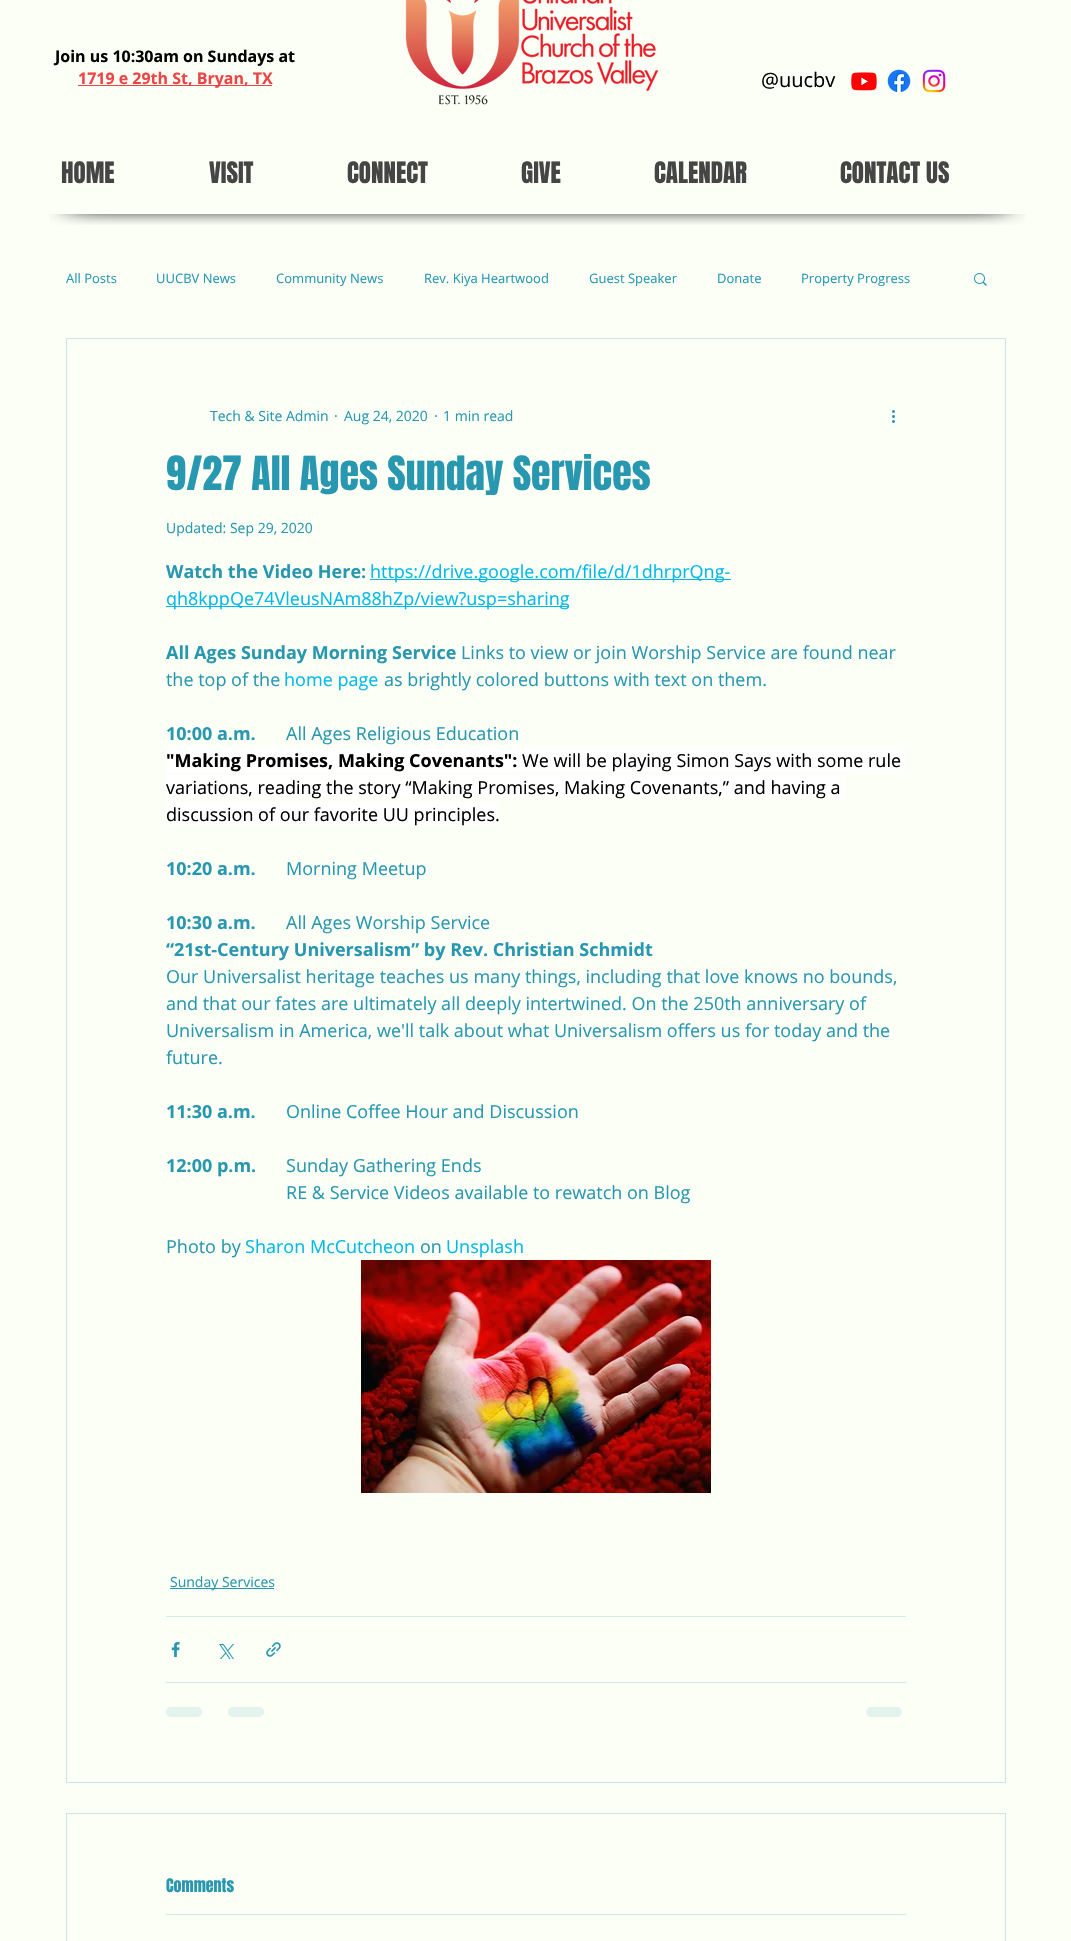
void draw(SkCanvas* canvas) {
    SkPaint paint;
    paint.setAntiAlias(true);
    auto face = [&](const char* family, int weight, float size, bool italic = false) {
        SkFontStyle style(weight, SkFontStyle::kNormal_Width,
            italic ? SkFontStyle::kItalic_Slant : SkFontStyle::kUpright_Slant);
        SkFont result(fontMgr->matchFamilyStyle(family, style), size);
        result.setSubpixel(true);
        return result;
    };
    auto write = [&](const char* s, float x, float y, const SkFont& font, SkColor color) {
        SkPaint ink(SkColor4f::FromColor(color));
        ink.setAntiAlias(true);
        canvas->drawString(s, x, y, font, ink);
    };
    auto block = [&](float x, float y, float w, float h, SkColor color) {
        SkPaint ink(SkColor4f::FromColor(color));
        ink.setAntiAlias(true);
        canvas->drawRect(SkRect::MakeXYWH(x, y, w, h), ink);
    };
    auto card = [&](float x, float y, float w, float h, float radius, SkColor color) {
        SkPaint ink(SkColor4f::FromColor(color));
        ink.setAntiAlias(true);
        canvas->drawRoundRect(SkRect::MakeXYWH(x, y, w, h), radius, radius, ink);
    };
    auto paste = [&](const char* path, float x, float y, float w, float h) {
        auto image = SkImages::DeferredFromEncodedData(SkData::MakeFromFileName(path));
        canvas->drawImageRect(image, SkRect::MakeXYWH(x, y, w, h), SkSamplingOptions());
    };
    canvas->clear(SkColorSetRGB(252, 255, 246));
    auto kFont1 = face("Open Sans", 700, 16);
    write("Join us 10:30am on Sundays at", 55, 62, kFont1, SK_ColorBLACK);
    block(78, 85, 194, 1, SkColorSetRGB(237, 69, 69));
    write("1719 e 29th St, Bryan, TX", 78, 84, kFont1, SkColorSetRGB(237, 69, 69));
    paste("pic1.png", 405, 0, 254, 105);
    auto kFont2 = face("Open Sans", 400, 20);
    write("@uucbv", 761, 87, kFont2, SK_ColorBLACK);
    paste("pic2.png", 851, 72, 26, 19);
    paste("pic3.png", 887, 69, 24, 24);
    paste("pic4.png", 922, 69, 24, 24);
    auto kFont3 = face("Anton", 400, 25);
    write("HOME", 61, 183, kFont3, SkColorSetRGB(69, 69, 69));
    write("VISIT", 209, 183, kFont3, SkColorSetRGB(69, 69, 69));
    write("CONNECT", 347, 183, kFont3, SkColorSetRGB(69, 69, 69));
    write("GIVE", 521, 183, kFont3, SkColorSetRGB(69, 69, 69));
    write("CALENDAR", 654, 183, kFont3, SkColorSetRGB(69, 69, 69));
    write("CONTACT US", 840, 183, kFont3, SkColorSetRGB(69, 69, 69));
    paste("pic5.png", 49, 212, 97, 13);
    paste("pic6.png", 146, 212, 783, 13);
    paste("pic7.png", 929, 212, 97, 13);
    auto kFont4 = face("Open Sans", 400, 13);
    write("All Posts", 66, 283, kFont4, SkColorSetRGB(40, 151, 176));
    write("UUCBV News", 156, 283, kFont4, SkColorSetRGB(40, 151, 176));
    write("Community News", 276, 283, kFont4, SkColorSetRGB(40, 151, 176));
    write("Rev. Kiya Heartwood", 424, 283, kFont4, SkColorSetRGB(40, 151, 176));
    write("Guest Speaker", 589, 283, kFont4, SkColorSetRGB(40, 151, 176));
    write("Donate", 717, 283, kFont4, SkColorSetRGB(40, 151, 176));
    write("Property Progress", 801, 283, kFont4, SkColorSetRGB(40, 151, 176));
    paste("pic8.png", 974, 273, 13, 13);
    paint.setStyle(SkPaint::kStroke_Style);
    paint.setStrokeWidth(1);
    paint.setColor(SkColorSetRGB(205, 230, 229));
    canvas->drawRect(SkRect::MakeXYWH(66.5f, 338.5f, 939, 1444), paint);
    auto kFont5 = face("Open Sans", 400, 14);
    write("Tech & Site Admin", 210, 421, kFont5, SkColorSetRGB(40, 151, 176));
    write("·", 334, 421, kFont5, SkColorSetRGB(40, 151, 176));
    write("Aug 24, 2020", 344, 421, kFont5, SkColorSetRGB(40, 151, 176));
    write("·", 434, 421, kFont5, SkColorSetRGB(40, 151, 176));
    write("1 min read", 443, 421, kFont5, SkColorSetRGB(40, 151, 176));
    paste("pic9.png", 892, 410, 3, 13);
    auto kFont6 = face("Anton", 400, 40);
    write("9/27 All Ages Sunday Services", 166, 490, kFont6, SkColorSetRGB(40, 151, 176));
    write("Updated: Sep 29, 2020", 166, 533, kFont5, SkColorSetRGB(40, 151, 176));
    auto kFont7 = face("Open Sans", 700, 18);
    write("Watch the Video Here:", 166, 578, kFont7, SkColorSetRGB(40, 151, 176));
    block(370, 579, 361, 1, SkColorSetRGB(0, 185, 232));
    auto kFont8 = face("Open Sans", 400, 18);
    write("https://drive.google.com/file/d/1dhrprQng-", 370, 578, kFont8, SkColorSetRGB(0, 185, 232));
    block(166, 606, 403, 1, SkColorSetRGB(0, 185, 232));
    write("qh8kppQe74VleusNAm88hZp/view?usp=sharing", 166, 605, kFont8, SkColorSetRGB(0, 185, 232));
    write("All Ages Sunday Morning Service", 166, 659, kFont7, SkColorSetRGB(40, 151, 176));
    write("Links to view or join Worship Service are found near", 461, 659, kFont8, SkColorSetRGB(40, 151, 176));
    write("the top of the", 166, 686, kFont8, SkColorSetRGB(40, 151, 176));
    write("home page", 284, 686, kFont8, SkColorSetRGB(0, 185, 232));
    write("as brightly colored buttons with text on them.", 384, 686, kFont8, SkColorSetRGB(40, 151, 176));
    write("10:00 a.m.", 166, 740, kFont7, SkColorSetRGB(40, 151, 176));
    write("All Ages Religious Education", 286, 740, kFont8, SkColorSetRGB(40, 151, 176));
    block(166, 748, 351, 25, SK_ColorWHITE);
    write("\"Making Promises, Making Covenants\":", 166, 767, kFont7, SK_ColorBLACK);
    block(517, 748, 388, 24, SK_ColorWHITE);
    write("We will be playing Simon Says with some rule", 522, 767, kFont8, SK_ColorBLACK);
    block(166, 775, 679, 24, SK_ColorWHITE);
    write("variations, reading the story “Making Promises, Making Covenants,” and having a", 166, 794, kFont8, SK_ColorBLACK);
    block(166, 802, 333, 24, SK_ColorWHITE);
    write("discussion of our favorite UU principles.", 166, 821, kFont8, SK_ColorBLACK);
    write("10:20 a.m.", 166, 875, kFont7, SkColorSetRGB(40, 151, 176));
    write("Morning Meetup", 286, 875, kFont8, SkColorSetRGB(40, 151, 176));
    write("10:30 a.m.", 166, 929, kFont7, SkColorSetRGB(40, 151, 176));
    write("All Ages Worship Service", 286, 929, kFont8, SkColorSetRGB(40, 151, 176));
    write("“21st-Century Universalism” by Rev. Christian Schmidt", 166, 956, kFont7, SkColorSetRGB(40, 151, 176));
    write("Our Universalist heritage teaches us many things, including that love knows no bounds,", 166, 983, kFont8, SkColorSetRGB(40, 151, 176));
    write("and that our fates are ultimately all deeply intertwined. On the 250th anniversary of", 166, 1010, kFont8, SkColorSetRGB(40, 151, 176));
    write("Universalism in America, we'll talk about what Universalism offers us for today and the", 166, 1037, kFont8, SkColorSetRGB(40, 151, 176));
    write("future.", 166, 1064, kFont8, SkColorSetRGB(40, 151, 176));
    write("11:30 a.m.", 166, 1118, kFont7, SkColorSetRGB(40, 151, 176));
    write("Online Coffee Hour and Discussion", 286, 1118, kFont8, SkColorSetRGB(40, 151, 176));
    write("12:00 p.m.", 166, 1172, kFont7, SkColorSetRGB(40, 151, 176));
    write("Sunday Gathering Ends", 286, 1172, kFont8, SkColorSetRGB(40, 151, 176));
    write("RE & Service Videos available to rewatch on Blog", 286, 1199, kFont8, SkColorSetRGB(40, 151, 176));
    write("Photo by", 166, 1253, kFont8, SkColorSetRGB(40, 151, 176));
    write("Sharon McCutcheon", 245, 1253, kFont8, SkColorSetRGB(0, 185, 232));
    write("on", 420, 1253, kFont8, SkColorSetRGB(40, 151, 176));
    write("Unsplash", 446, 1253, kFont8, SkColorSetRGB(0, 185, 232));
    paste("pic10.png", 361, 1260, 350, 233);
    block(170, 1588, 104, 1, SkColorSetRGB(40, 151, 176));
    write("Sunday Services", 170, 1587, kFont5, SkColorSetRGB(40, 151, 176));
    block(166, 1616, 740, 1, SkColorSetRGB(210, 234, 232));
    paste("pic11.png", 171, 1642, 9, 15);
    paste("pic12.png", 219, 1644, 15, 15);
    paste("pic13.png", 266, 1642, 15, 15);
    block(166, 1682, 740, 1, SkColorSetRGB(210, 234, 232));
    card(166, 1707, 36, 10, 5, SkColorSetRGB(227, 243, 238));
    card(228, 1707, 36, 10, 5, SkColorSetRGB(227, 243, 238));
    card(866, 1707, 36, 10, 5, SkColorSetRGB(227, 243, 238));
    canvas->drawRect(SkRect::MakeXYWH(66.5f, 1813.5f, 939, 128), paint);
    auto kFont9 = face("Anton", 400, 16);
    write("Comments", 166, 1892, kFont9, SkColorSetRGB(40, 151, 176));
    block(166, 1914, 740, 1, SkColorSetRGB(210, 234, 232));
}
